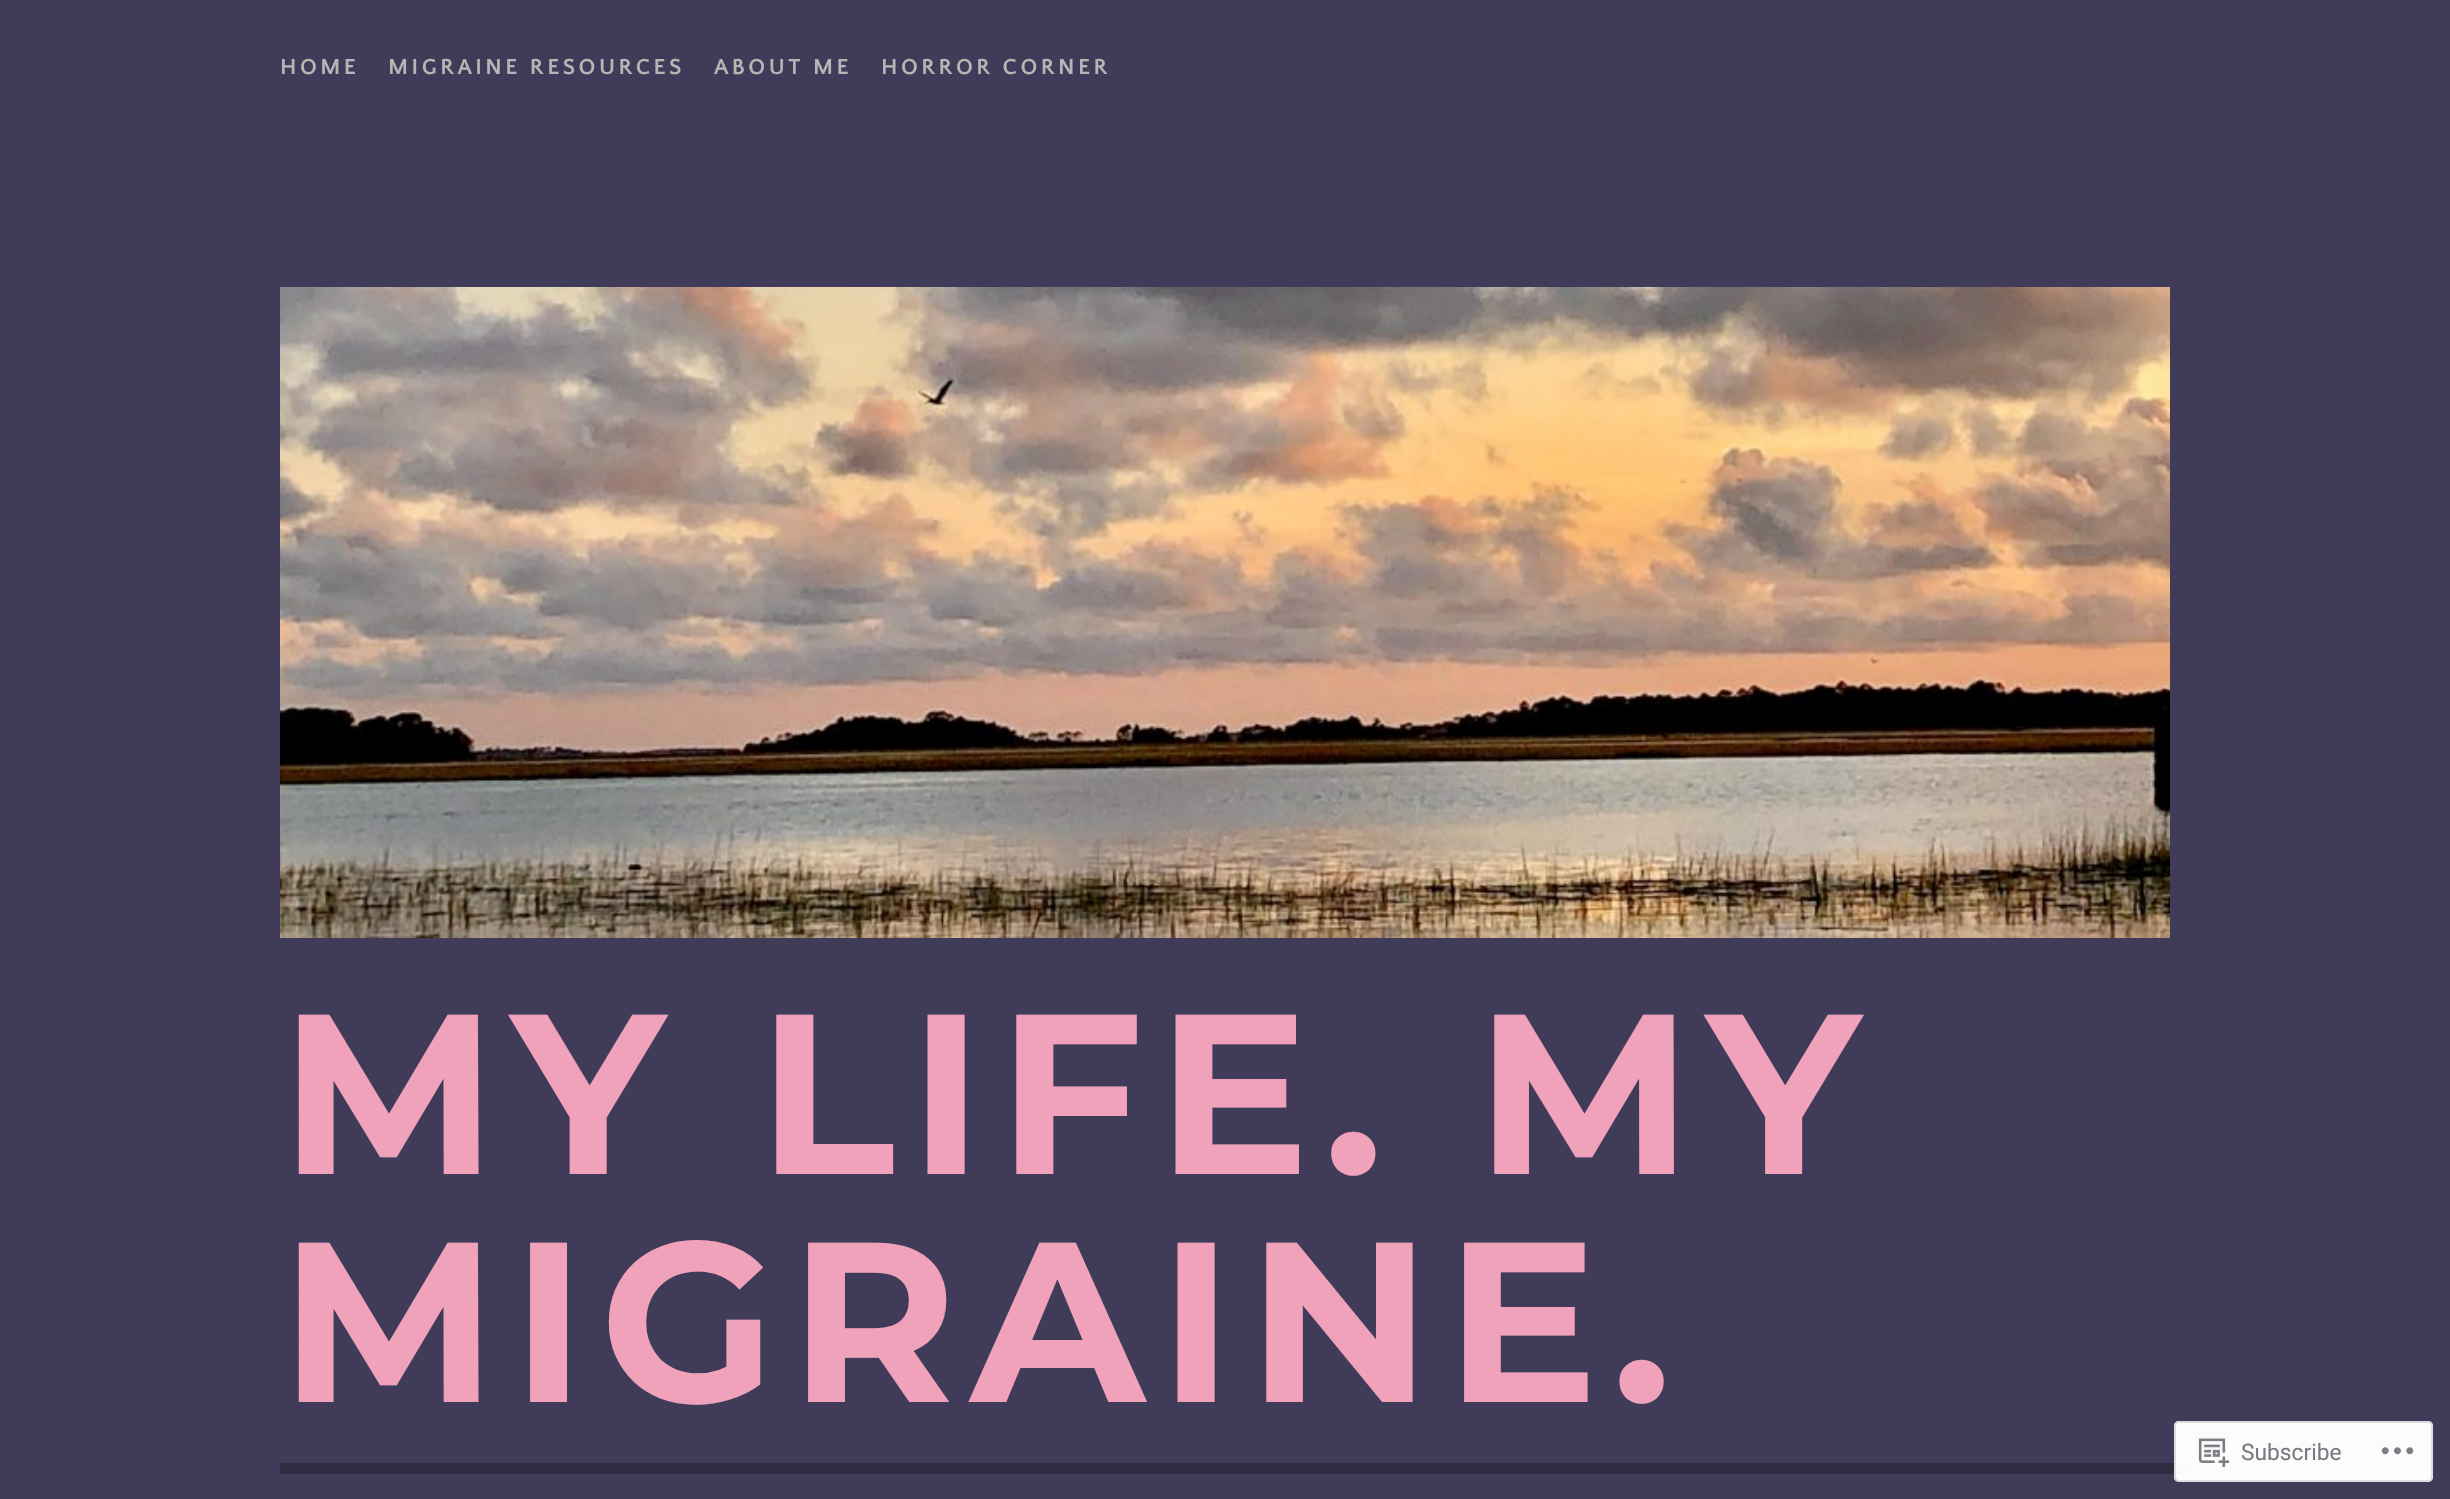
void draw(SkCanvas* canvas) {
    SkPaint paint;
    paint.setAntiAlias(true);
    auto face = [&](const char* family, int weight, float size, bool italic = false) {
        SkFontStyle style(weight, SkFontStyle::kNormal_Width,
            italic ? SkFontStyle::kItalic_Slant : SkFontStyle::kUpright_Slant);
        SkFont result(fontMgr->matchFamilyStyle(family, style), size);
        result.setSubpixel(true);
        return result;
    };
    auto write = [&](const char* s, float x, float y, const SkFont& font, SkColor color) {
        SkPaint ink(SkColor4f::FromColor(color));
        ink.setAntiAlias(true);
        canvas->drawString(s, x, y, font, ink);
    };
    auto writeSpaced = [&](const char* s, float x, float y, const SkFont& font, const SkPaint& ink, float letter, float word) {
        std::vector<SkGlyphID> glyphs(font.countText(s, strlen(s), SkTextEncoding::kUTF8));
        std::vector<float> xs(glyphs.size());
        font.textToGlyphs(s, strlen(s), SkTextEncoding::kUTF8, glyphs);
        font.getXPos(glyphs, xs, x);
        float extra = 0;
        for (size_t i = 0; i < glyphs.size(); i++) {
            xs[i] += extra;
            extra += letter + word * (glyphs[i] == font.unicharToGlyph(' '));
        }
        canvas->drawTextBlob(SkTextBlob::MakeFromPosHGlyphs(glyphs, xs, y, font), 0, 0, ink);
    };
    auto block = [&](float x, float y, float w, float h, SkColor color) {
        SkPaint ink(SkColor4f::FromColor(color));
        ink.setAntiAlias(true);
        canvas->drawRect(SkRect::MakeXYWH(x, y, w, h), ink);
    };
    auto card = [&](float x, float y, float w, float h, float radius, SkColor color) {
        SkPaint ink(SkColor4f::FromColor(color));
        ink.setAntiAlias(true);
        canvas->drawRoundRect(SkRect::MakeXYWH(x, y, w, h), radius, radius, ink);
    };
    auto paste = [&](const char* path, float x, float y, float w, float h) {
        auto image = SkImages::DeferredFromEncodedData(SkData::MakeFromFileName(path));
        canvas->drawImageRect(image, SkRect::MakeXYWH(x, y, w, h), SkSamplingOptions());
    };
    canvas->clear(SkColorSetRGB(64, 59, 88));
    auto kFont1 = face("Quattrocento Sans", 700, 22.75f);
    paint.setColor(SkColorSetRGB(181, 181, 181));
    writeSpaced("HOME", 280, 74, kFont1, paint, 3.5f, 0);
    writeSpaced("MIGRAINE RESOURCES", 388, 74, kFont1, paint, 3.5f, 0);
    writeSpaced("ABOUT ME", 714, 74, kFont1, paint, 3.5f, 0);
    writeSpaced("HORROR CORNER", 881, 74, kFont1, paint, 3.5f, 0);
    paste("pic1.png", 280, 287, 1890, 651);
    auto kFont2 = face("Montserrat", 100, 227.5f);
    paint.setColor(SkColorSetRGB(240, 162, 187));
    writeSpaced("MY LIFE. MY", 280, 1174, kFont2, paint, 14, 0);
    writeSpaced("MIGRAINE.", 280, 1402, kFont2, paint, 14, 0);
    block(280, 1463, 1908, 11, SkColorSetRGB(47, 43, 65));
    card(2174, 1421, 259, 61, 5, SkColorSetARGB(250, 255, 255, 255));
    paint.setStyle(SkPaint::kStroke_Style);
    paint.setStrokeWidth(2);
    paint.setColor(SkColorSetARGB(250, 220, 220, 222));
    canvas->drawRoundRect(SkRect::MakeXYWH(2175, 1422, 257, 59), 4, 4, paint);
    paste("pic2.png", 2198, 1438, 32, 29);
    auto kFont3 = face("Roboto", 400, 22.75f);
    write("Subscribe", 2241, 1460, kFont3, SkColorSetRGB(119, 123, 129));
    paste("pic3.png", 2381, 1447, 33, 8);
}
